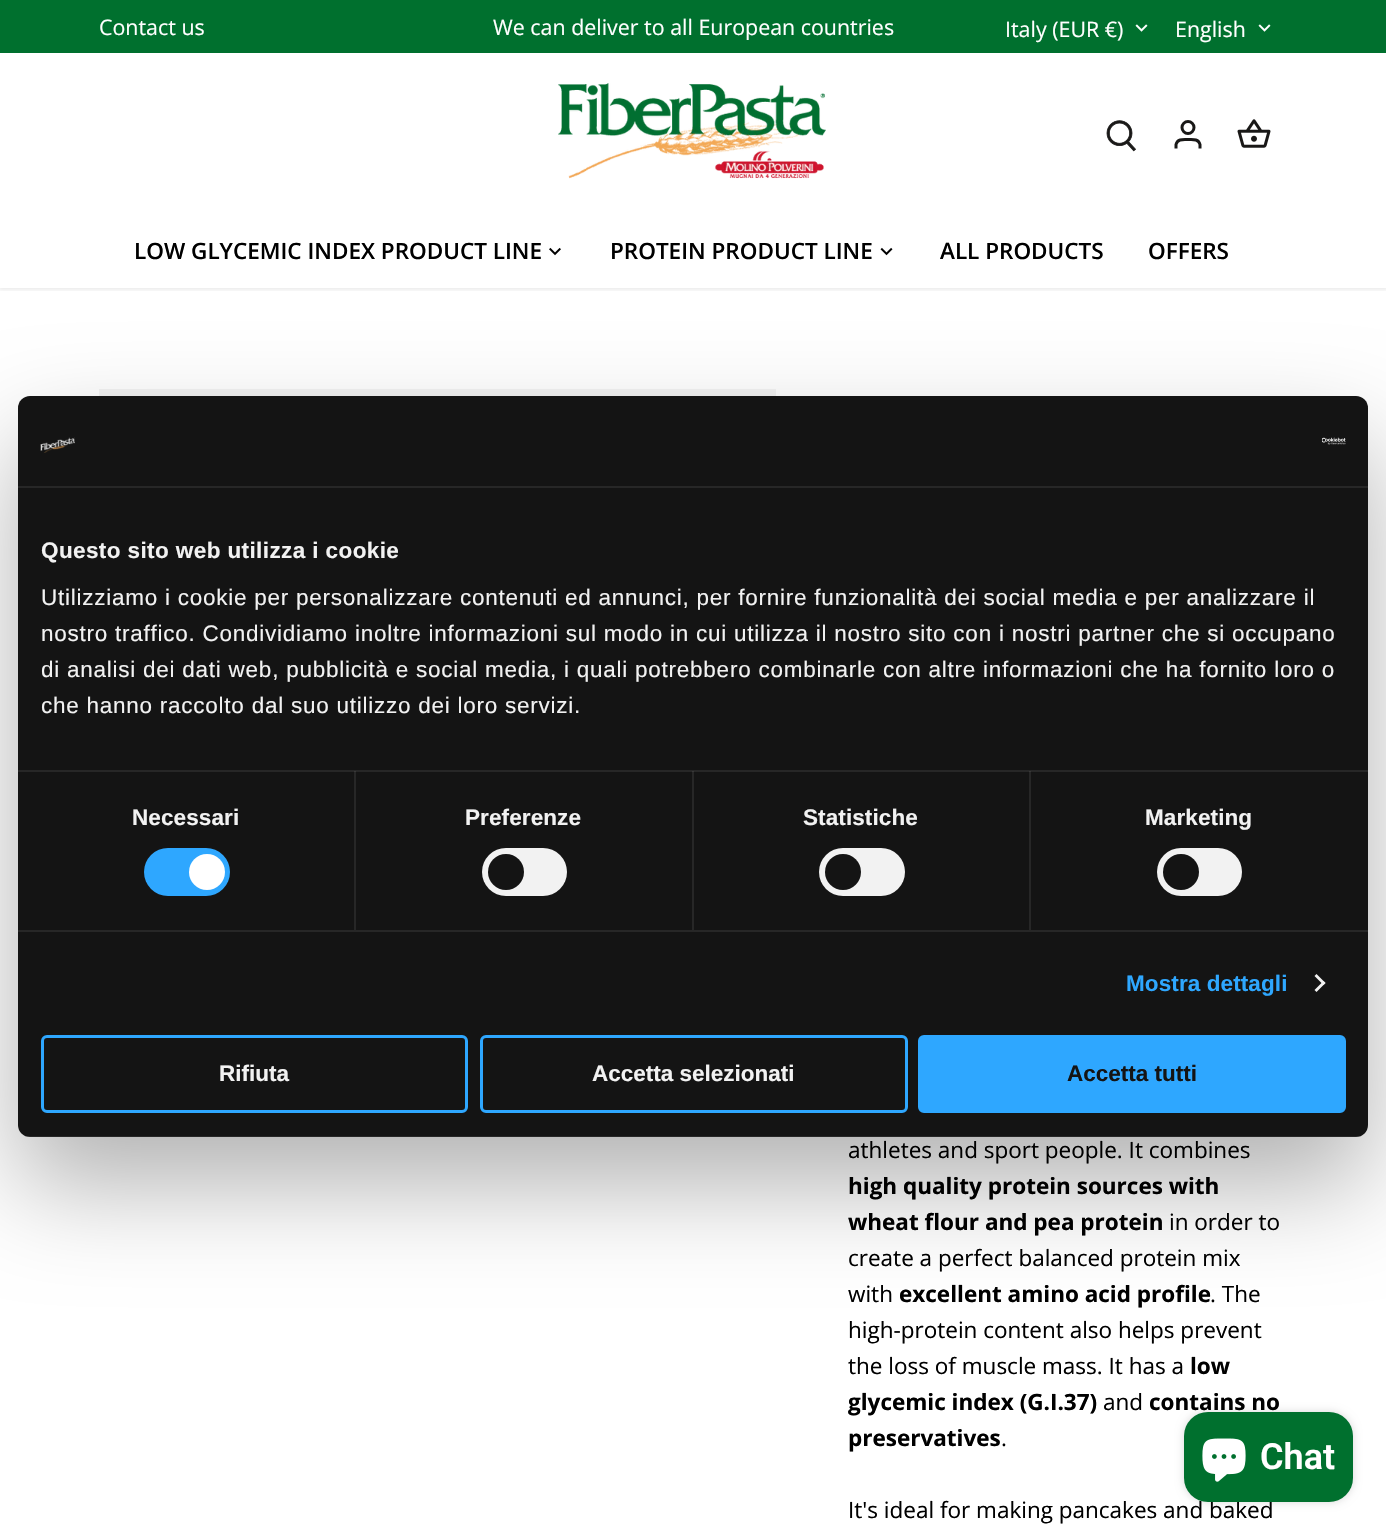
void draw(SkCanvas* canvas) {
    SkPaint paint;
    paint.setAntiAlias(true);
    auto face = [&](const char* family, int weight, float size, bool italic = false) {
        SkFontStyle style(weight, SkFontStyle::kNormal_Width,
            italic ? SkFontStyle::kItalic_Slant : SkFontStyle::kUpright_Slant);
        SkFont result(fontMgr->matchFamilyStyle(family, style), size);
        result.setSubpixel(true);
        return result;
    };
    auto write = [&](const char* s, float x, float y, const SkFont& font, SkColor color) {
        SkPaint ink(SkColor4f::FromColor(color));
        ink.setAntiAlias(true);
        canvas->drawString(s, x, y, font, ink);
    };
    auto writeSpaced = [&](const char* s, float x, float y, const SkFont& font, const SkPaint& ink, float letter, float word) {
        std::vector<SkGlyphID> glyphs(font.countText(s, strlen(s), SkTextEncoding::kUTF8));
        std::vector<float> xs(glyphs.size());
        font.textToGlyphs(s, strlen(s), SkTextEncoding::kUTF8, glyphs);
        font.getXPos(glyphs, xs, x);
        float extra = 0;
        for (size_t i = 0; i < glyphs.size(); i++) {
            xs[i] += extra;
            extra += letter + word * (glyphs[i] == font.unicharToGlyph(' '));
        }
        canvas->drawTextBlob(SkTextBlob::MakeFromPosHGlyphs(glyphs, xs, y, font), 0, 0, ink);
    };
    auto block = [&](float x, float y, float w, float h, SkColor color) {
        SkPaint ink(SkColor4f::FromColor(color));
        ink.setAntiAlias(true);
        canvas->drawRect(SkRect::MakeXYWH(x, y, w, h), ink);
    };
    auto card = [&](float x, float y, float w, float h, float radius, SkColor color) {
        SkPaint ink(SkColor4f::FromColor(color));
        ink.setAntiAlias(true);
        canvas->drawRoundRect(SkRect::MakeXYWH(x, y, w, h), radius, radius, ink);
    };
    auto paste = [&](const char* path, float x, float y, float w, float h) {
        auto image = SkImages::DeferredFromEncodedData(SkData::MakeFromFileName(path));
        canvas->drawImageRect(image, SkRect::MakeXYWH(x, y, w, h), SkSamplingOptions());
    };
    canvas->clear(SK_ColorWHITE);
    canvas->save();
    canvas->clipRect(SkRect::MakeXYWH(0, 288, 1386, 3));
    paint.setColor(SkColorSetARGB(20, 0, 0, 0));
    paint.setMaskFilter(SkMaskFilter::MakeBlur(kNormal_SkBlurStyle, 2));
    canvas->drawRect(SkRect::MakeXYWH(-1, 51, 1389, 239), paint);
    paint.setMaskFilter(nullptr);
    canvas->restore();
    block(0, 0, 1386, 53, SkColorSetRGB(0, 112, 46));
    auto kFont1 = face("Open Sans", 400, 21.4f);
    write("Contact us", 99, 35, kFont1, SK_ColorWHITE);
    write("We can deliver to all European countries", 493, 35, kFont1, SK_ColorWHITE);
    write("Italy (EUR €)", 1005, 37, kFont1, SK_ColorWHITE);
    paste("pic1.png", 1135, 24, 13, 8);
    write("English", 1175, 37, kFont1, SK_ColorWHITE);
    paste("pic1.png", 1258, 24, 13, 8);
    paste("pic2.png", 558, 83, 268, 96);
    paste("pic3.png", 1106, 120, 30, 32);
    paint.setStyle(SkPaint::kStroke_Style);
    paint.setStrokeWidth(3);
    paint.setColor(SkColorSetRGB(25, 24, 23));
    canvas->drawCircle(1188, 127.5f, 6, paint);
    canvas->drawPath(SkPathBuilder().moveTo(1200, 148.5f).lineTo(1200, 144.5f).cubicTo(1198.5f, 138.5f, 1192.5f, 139.5f, 1188, 139.5f).cubicTo(1183.5f, 139.5f, 1177.5f, 138.5f, 1176, 144.5f).lineTo(1176, 148.5f).detach(), paint);
    paste("pic4.png", 1237, 119, 34, 29);
    auto kFont2 = face("Open Sans", 600, 22.5f);
    write("LOW GLYCEMIC INDEX PRODUCT LINE", 134, 259, kFont2, SK_ColorBLACK);
    paste("pic5.png", 549, 247, 12, 9);
    write("PROTEIN PRODUCT LINE", 610, 259, kFont2, SK_ColorBLACK);
    paste("pic6.png", 880, 247, 13, 9);
    write("ALL PRODUCTS", 940, 259, kFont2, SK_ColorBLACK);
    write("OFFERS", 1148, 259, kFont2, SK_ColorBLACK);
    block(99, 389, 677, 7, SkColorSetRGB(243, 243, 243));
    auto kFont3 = face("Open Sans", 400, 22.5f);
    write("athletes and sport people. It combines", 848, 1158, kFont3, SK_ColorBLACK);
    auto kFont4 = face("Open Sans", 700, 22.5f);
    write("high quality protein sources with", 848, 1194, kFont4, SK_ColorBLACK);
    write("wheat flour and pea protein", 848, 1230, kFont4, SK_ColorBLACK);
    write("in order to", 1169, 1230, kFont3, SK_ColorBLACK);
    write("create a perfect balanced protein mix", 848, 1266, kFont3, SK_ColorBLACK);
    write("with", 848, 1302, kFont3, SK_ColorBLACK);
    write("excellent amino acid profile", 899, 1302, kFont4, SK_ColorBLACK);
    write(". The", 1210, 1302, kFont3, SK_ColorBLACK);
    write("high-protein content also helps prevent", 848, 1338, kFont3, SK_ColorBLACK);
    write("the loss of muscle mass. It has a", 848, 1374, kFont3, SK_ColorBLACK);
    write("low", 1190, 1374, kFont4, SK_ColorBLACK);
    write("glycemic index (G.I.37)", 848, 1410, kFont4, SK_ColorBLACK);
    write("and", 1103, 1410, kFont3, SK_ColorBLACK);
    write("contains no", 1149, 1410, kFont4, SK_ColorBLACK);
    write("preservatives", 848, 1446, kFont4, SK_ColorBLACK);
    write(".", 1001, 1446, kFont3, SK_ColorBLACK);
    write("It's ideal for making pancakes and baked", 848, 1518, kFont3, SK_ColorBLACK);
    paint.setStyle(SkPaint::kFill_Style);
    paint.setColor(SkColorSetARGB(77, 0, 0, 0));
    paint.setMaskFilter(SkMaskFilter::MakeBlur(kNormal_SkBlurStyle, 51));
    canvas->drawRoundRect(SkRect::MakeXYWH(18, 444, 1350, 741), 12, 12, paint);
    paint.setMaskFilter(nullptr);
    card(18, 396, 1350, 741, 12, SkColorSetRGB(20, 20, 20));
    block(18, 486, 1350, 2, SkColorSetRGB(39, 39, 39));
    paste("pic7.png", 40, 437, 35, 16);
    paste("pic8.png", 1322, 437, 24, 8);
    block(354, 771, 2, 159, SkColorSetRGB(39, 39, 39));
    block(692, 771, 2, 159, SkColorSetRGB(39, 39, 39));
    block(1029, 771, 2, 159, SkColorSetRGB(39, 39, 39));
    block(18, 770, 1350, 2, SkColorSetARGB(20, 255, 255, 255));
    auto kFont5 = face("Liberation Sans", 700, 22.5f);
    paint.setColor(SkColorSetRGB(242, 242, 242));
    writeSpaced("Questo sito web utilizza i cookie", 41, 558, kFont5, paint, 0.4f, 0);
    auto kFont6 = face("Liberation Sans", 400, 22.5f);
    writeSpaced("Utilizziamo i cookie per personalizzare contenuti ed annunci, per fornire funzionalità dei social media e per analizzare il", 41, 605, kFont6, paint, 0.75f, 0);
    writeSpaced("nostro traffico. Condividiamo inoltre informazioni sul modo in cui utilizza il nostro sito con i nostri partner che si occupano", 41, 641, kFont6, paint, 0.75f, 0);
    writeSpaced("di analisi dei dati web, pubblicità e social media, i quali potrebbero combinarle con altre informazioni che ha fornito loro o", 41, 677, kFont6, paint, 0.75f, 0);
    writeSpaced("che hanno raccolto dal suo utilizzo dei loro servizi.", 41, 713, kFont6, paint, 0.75f, 0);
    block(18, 930, 1350, 2, SkColorSetRGB(39, 39, 39));
    writeSpaced("Necessari", 132, 825, kFont5, paint, 0.1f, 0);
    card(144, 848, 86, 48, 24, SkColorSetRGB(46, 167, 255));
    paint.setColor(SK_ColorWHITE);
    canvas->drawCircle(207, 872, 18, paint);
    paint.setColor(SkColorSetRGB(242, 242, 242));
    writeSpaced("Preferenze", 465, 825, kFont5, paint, 0.1f, 0);
    card(482, 848, 85, 48, 24, SkColorSetRGB(242, 242, 242));
    paint.setColor(SkColorSetRGB(20, 20, 20));
    canvas->drawCircle(506, 872, 18, paint);
    paint.setColor(SkColorSetRGB(242, 242, 242));
    writeSpaced("Statistiche", 803, 825, kFont5, paint, 0.1f, 0);
    card(819, 848, 86, 48, 24, SkColorSetRGB(242, 242, 242));
    paint.setColor(SkColorSetRGB(20, 20, 20));
    canvas->drawCircle(843, 872, 18, paint);
    paint.setColor(SkColorSetRGB(242, 242, 242));
    writeSpaced("Marketing", 1145, 825, kFont5, paint, 0.1f, 0);
    card(1157, 848, 85, 48, 24, SkColorSetRGB(242, 242, 242));
    paint.setColor(SkColorSetRGB(20, 20, 20));
    canvas->drawCircle(1181, 872, 18, paint);
    paint.setColor(SkColorSetRGB(46, 167, 255));
    writeSpaced("Mostra dettagli", 1126, 991, kFont5, paint, 0.1f, 0);
    paint.setColor(SkColorSetRGB(242, 242, 242));
    canvas->drawPath(SkPathBuilder().moveTo(1316.5f, 974).lineTo(1325.5f, 983).lineTo(1323.5f, 985).lineTo(1314.5f, 976).close().detach(), paint);
    canvas->drawPath(SkPathBuilder().moveTo(1323.5f, 981).lineTo(1325.5f, 983).lineTo(1316.5f, 992).lineTo(1314.5f, 990).close().detach(), paint);
    canvas->save();
    canvas->clipPath(SkPathBuilder().moveTo(30, 396).lineTo(1356, 396).cubicTo(1362.5f, 396, 1368, 401.5f, 1368, 408).lineTo(1368, 1125).cubicTo(1368, 1131.5f, 1362.5f, 1137, 1356, 1137).lineTo(30, 1137).cubicTo(23.5f, 1137, 18, 1131.5f, 18, 1125).lineTo(18, 408).cubicTo(18, 401.5f, 23.5f, 396, 30, 396).close().detach(), true);
    block(18, 1136, 1350, 1, SkColorSetARGB(20, 255, 255, 255));
    canvas->restore();
    paint.setStyle(SkPaint::kStroke_Style);
    paint.setColor(SkColorSetRGB(46, 167, 255));
    canvas->drawRoundRect(SkRect::MakeXYWH(42.5f, 1036.5f, 424, 75), 4.5f, 4.5f, paint);
    write("Rifiuta", 219, 1081, kFont5, SkColorSetRGB(242, 242, 242));
    canvas->drawRoundRect(SkRect::MakeXYWH(481.5f, 1036.5f, 425, 75), 4.5f, 4.5f, paint);
    write("Accetta selezionati", 592, 1081, kFont5, SkColorSetRGB(242, 242, 242));
    paint.setStyle(SkPaint::kFill_Style);
    canvas->drawRoundRect(SkRect::MakeXYWH(919.5f, 1036.5f, 425, 75), 4.5f, 4.5f, paint);
    paint.setStyle(SkPaint::kStroke_Style);
    canvas->drawRoundRect(SkRect::MakeXYWH(919.5f, 1036.5f, 425, 75), 4.5f, 4.5f, paint);
    write("Accetta tutti", 1067, 1081, kFont5, SkColorSetRGB(20, 20, 20));
    paint.setStyle(SkPaint::kFill_Style);
    paint.setColor(SkColorSetARGB(38, 0, 0, 0));
    paint.setMaskFilter(SkMaskFilter::MakeBlur(kNormal_SkBlurStyle, 4));
    canvas->drawRoundRect(SkRect::MakeXYWH(1184, 1412, 169, 90), 24, 24, paint);
    paint.setMaskFilter(nullptr);
    card(1184, 1412, 169, 90, 24, SkColorSetRGB(0, 112, 46));
    paste("pic9.png", 1202, 1438, 44, 44);
    auto kFont7 = face("Roboto", 600, 36);
    write("Chat", 1260, 1469, kFont7, SK_ColorWHITE);
}
